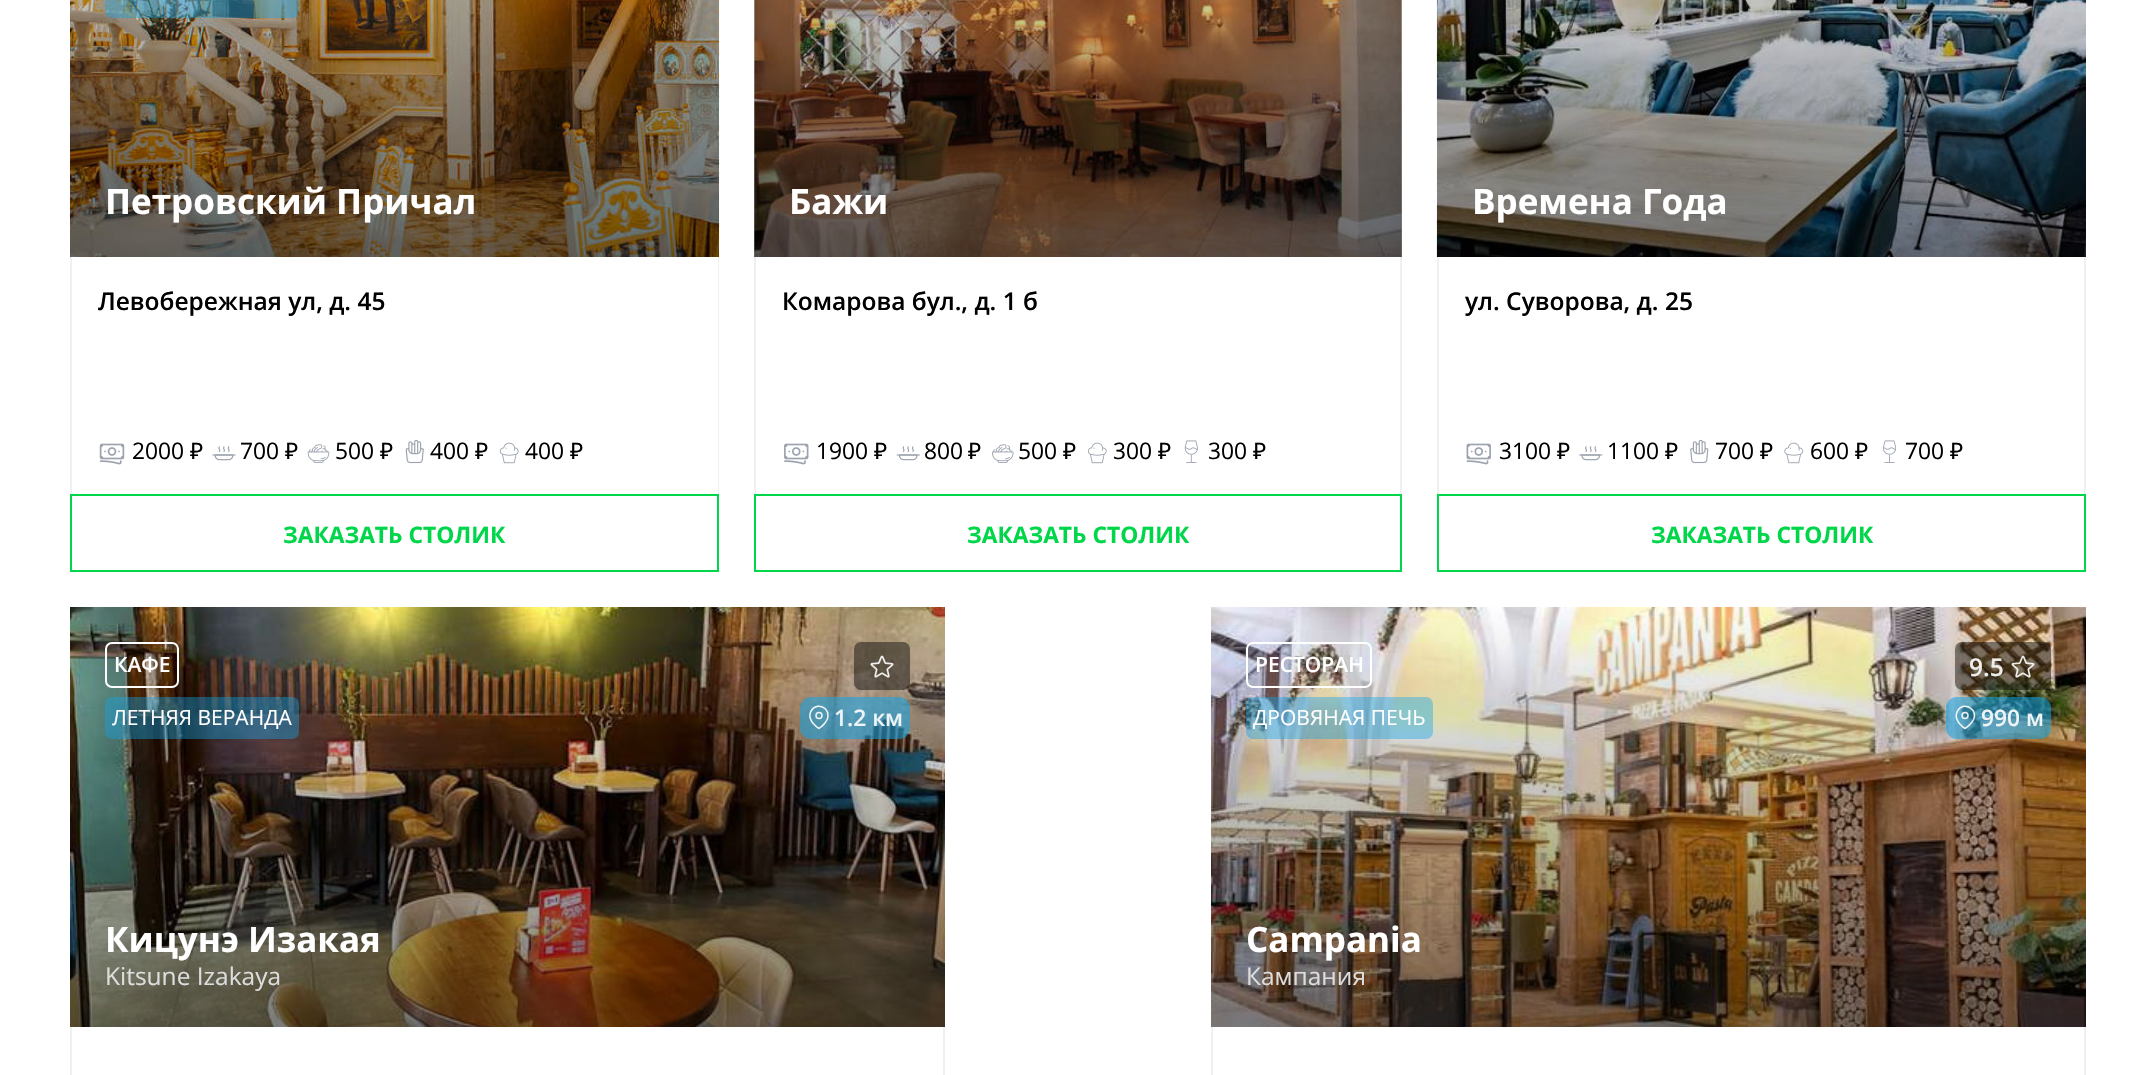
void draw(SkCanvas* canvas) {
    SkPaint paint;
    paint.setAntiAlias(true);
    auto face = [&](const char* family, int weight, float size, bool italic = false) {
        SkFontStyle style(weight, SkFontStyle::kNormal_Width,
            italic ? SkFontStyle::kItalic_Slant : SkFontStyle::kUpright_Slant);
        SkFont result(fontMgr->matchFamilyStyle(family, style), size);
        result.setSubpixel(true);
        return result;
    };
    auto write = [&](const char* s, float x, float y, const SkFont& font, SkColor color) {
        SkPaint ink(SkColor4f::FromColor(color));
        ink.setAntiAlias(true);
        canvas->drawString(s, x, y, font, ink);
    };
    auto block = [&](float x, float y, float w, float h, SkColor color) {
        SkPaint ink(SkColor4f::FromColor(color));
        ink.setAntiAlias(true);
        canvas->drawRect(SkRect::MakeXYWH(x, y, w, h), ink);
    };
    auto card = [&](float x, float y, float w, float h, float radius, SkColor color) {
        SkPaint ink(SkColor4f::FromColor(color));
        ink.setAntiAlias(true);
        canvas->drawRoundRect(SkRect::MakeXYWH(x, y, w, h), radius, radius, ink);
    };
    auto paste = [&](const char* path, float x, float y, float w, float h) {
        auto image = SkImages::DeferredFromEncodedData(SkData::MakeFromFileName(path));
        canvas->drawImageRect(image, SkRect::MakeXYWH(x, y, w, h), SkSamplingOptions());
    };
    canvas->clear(SK_ColorWHITE);
    paste("pic1.png", 70, 0, 650, 257);
    card(105, -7, 194, 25, 7, SkColorSetARGB(102, 14, 165, 233));
    auto kFont1 = face("Open Sans", 700, 35);
    write("Петровский Причал", 105, 214, kFont1, SK_ColorWHITE);
    block(718, 257, 1, 237, SkColorSetRGB(239, 240, 240));
    block(70, 257, 2, 237, SkColorSetRGB(239, 240, 240));
    auto kFont2 = face("Open Sans", 600, 24.5f);
    write("Левобережная ул, д. 45", 98, 310, kFont2, SK_ColorBLACK);
    paste("pic2.png", 99, 443, 26, 22);
    auto kFont3 = face("Open Sans", 400, 22.75f);
    write("2000", 132, 459, kFont3, SK_ColorBLACK);
    auto kFont4 = face("Noto Sans", 400, 22.75f);
    write("₽", 190, 459, kFont4, SK_ColorBLACK);
    paste("pic3.png", 212, 446, 24, 15);
    write("700", 240, 459, kFont3, SK_ColorBLACK);
    write("₽", 285, 459, kFont4, SK_ColorBLACK);
    paste("pic4.png", 307, 444, 23, 19);
    write("500", 335, 459, kFont3, SK_ColorBLACK);
    write("₽", 380, 459, kFont4, SK_ColorBLACK);
    paste("pic5.png", 405, 439, 19, 25);
    write("400", 430, 459, kFont3, SK_ColorBLACK);
    write("₽", 475, 459, kFont4, SK_ColorBLACK);
    paste("pic6.png", 499, 442, 20, 22);
    write("400", 525, 459, kFont3, SK_ColorBLACK);
    write("₽", 570, 459, kFont4, SK_ColorBLACK);
    paint.setStyle(SkPaint::kStroke_Style);
    paint.setStrokeWidth(2);
    paint.setColor(SkColorSetRGB(0, 214, 74));
    canvas->drawRect(SkRect::MakeXYWH(71, 495, 647, 76), paint);
    auto kFont5 = face("Open Sans", 700, 22.75f);
    write("ЗАКАЗАТЬ СТОЛИК", 283, 543, kFont5, SkColorSetRGB(0, 214, 74));
    paste("pic7.png", 754, 0, 648, 257);
    paint.setStyle(SkPaint::kFill_Style);
    {
        const SkColor colors[] = {SkColorSetARGB(128, 0, 0, 0), SkColorSetARGB(0, 0, 0, 0)};
        const float stops[] = {0, 1};
        const SkPoint ends[] = {{1078, 257}, {1078, -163}};
        paint.setShader(SkGradientShader::MakeLinear(ends, colors, stops, 2, SkTileMode::kClamp));
        paint.setAlpha(255);
    }
    canvas->drawRect(SkRect::MakeXYWH(754, 0, 648, 257), paint);
    write("Бажи", 789, 214, kFont1, SK_ColorWHITE);
    block(1400, 257, 2, 237, SkColorSetRGB(239, 240, 240));
    block(754, 257, 2, 237, SkColorSetRGB(239, 240, 240));
    write("Комарова бул., д. 1 б", 782, 310, kFont2, SK_ColorBLACK);
    paste("pic8.png", 784, 443, 25, 22);
    write("1900", 816, 459, kFont3, SK_ColorBLACK);
    write("₽", 874, 459, kFont4, SK_ColorBLACK);
    paste("pic9.png", 896, 446, 24, 15);
    write("800", 924, 459, kFont3, SK_ColorBLACK);
    write("₽", 968, 459, kFont4, SK_ColorBLACK);
    paste("pic10.png", 992, 444, 22, 19);
    write("500", 1018, 459, kFont3, SK_ColorBLACK);
    write("₽", 1063, 459, kFont4, SK_ColorBLACK);
    paste("pic6.png", 1087, 442, 20, 22);
    write("300", 1113, 459, kFont3, SK_ColorBLACK);
    write("₽", 1158, 459, kFont4, SK_ColorBLACK);
    paste("pic11.png", 1184, 440, 14, 23);
    write("300", 1208, 459, kFont3, SK_ColorBLACK);
    write("₽", 1253, 459, kFont4, SK_ColorBLACK);
    paint.setStyle(SkPaint::kStroke_Style);
    paint.setShader(nullptr);
    paint.setColor(SkColorSetRGB(0, 214, 74));
    canvas->drawRect(SkRect::MakeXYWH(755, 495, 646, 76), paint);
    write("ЗАКАЗАТЬ СТОЛИК", 967, 543, kFont5, SkColorSetRGB(0, 214, 74));
    paste("pic12.png", 1436, 0, 650, 257);
    write("Времена Года", 1472, 214, kFont1, SK_ColorWHITE);
    block(2084, 257, 2, 237, SkColorSetRGB(239, 240, 240));
    block(1437, 257, 2, 237, SkColorSetRGB(239, 240, 240));
    write("ул. Суворова, д. 25", 1465, 310, kFont2, SK_ColorBLACK);
    paste("pic13.png", 1466, 443, 25, 22);
    write("3100", 1499, 459, kFont3, SK_ColorBLACK);
    write("₽", 1557, 459, kFont4, SK_ColorBLACK);
    paste("pic14.png", 1579, 446, 24, 15);
    write("1100", 1607, 459, kFont3, SK_ColorBLACK);
    write("₽", 1665, 459, kFont4, SK_ColorBLACK);
    paste("pic15.png", 1690, 439, 19, 25);
    write("700", 1715, 459, kFont3, SK_ColorBLACK);
    write("₽", 1760, 459, kFont4, SK_ColorBLACK);
    paste("pic16.png", 1784, 442, 20, 22);
    write("600", 1810, 459, kFont3, SK_ColorBLACK);
    write("₽", 1855, 459, kFont4, SK_ColorBLACK);
    paste("pic17.png", 1883, 440, 14, 23);
    write("700", 1905, 459, kFont3, SK_ColorBLACK);
    write("₽", 1950, 459, kFont4, SK_ColorBLACK);
    canvas->drawRect(SkRect::MakeXYWH(1438, 495, 647, 76), paint);
    write("ЗАКАЗАТЬ СТОЛИК", 1651, 543, kFont5, SkColorSetRGB(0, 214, 74));
    paste("pic18.png", 70, 607, 875, 420);
    paint.setColor(SK_ColorWHITE);
    canvas->drawRoundRect(SkRect::MakeXYWH(106, 643, 72, 44), 6, 6, paint);
    auto kFont6 = face("Open Sans", 600, 21);
    write("КАФЕ", 114, 672, kFont6, SK_ColorWHITE);
    card(854, 642, 56, 48, 7, SkColorSetARGB(115, 0, 0, 0));
    paste("pic19.png", 870, 655, 24, 23);
    card(105, 697, 194, 42, 7, SkColorSetARGB(102, 14, 165, 233));
    auto kFont7 = face("Open Sans", 400, 21);
    write("ЛЕТНЯЯ ВЕРАНДА", 112, 725, kFont7, SK_ColorWHITE);
    card(800, 697, 110, 42, 11, SkColorSetARGB(138, 14, 165, 233));
    paint.setStrokeWidth(1.5f);
    paint.setStrokeCap(SkPaint::kRound_Cap);
    paint.setStrokeJoin(SkPaint::kRound_Join);
    paint.setColor(SkColorSetARGB(230, 255, 255, 255));
    canvas->drawPath(SkPathBuilder().moveTo(828, 715.5f).cubicTo(828, 722.5f, 819, 728.5f, 819, 728.5f).cubicTo(799.5f, 716, 816, 699.5f, 825.5f, 709).cubicTo(827, 710.5f, 828, 713, 828, 715.5f).detach(), paint);
    paint.setStrokeCap(SkPaint::kButt_Cap);
    paint.setStrokeJoin(SkPaint::kMiter_Join);
    canvas->drawCircle(819, 715.5f, 3, paint);
    auto kFont8 = face("Open Sans", 600, 22.75f);
    write("1.2 км", 834, 726, kFont8, SkColorSetRGB(237, 244, 247));
    write("Кицунэ Изакая", 105, 952, kFont1, SK_ColorWHITE);
    auto kFont9 = face("Open Sans", 400, 24.5f);
    write("Kitsune Izakaya", 105, 985, kFont9, SkColorSetRGB(221, 221, 221));
    block(943, 1027, 2, 48, SkColorSetRGB(239, 240, 240));
    block(70, 1027, 2, 48, SkColorSetRGB(239, 240, 240));
    paste("pic20.png", 1211, 607, 875, 420);
    paint.setStrokeWidth(2);
    paint.setColor(SK_ColorWHITE);
    canvas->drawRoundRect(SkRect::MakeXYWH(1247, 643, 124, 44), 6, 6, paint);
    write("РЕСТОРАН", 1255, 672, kFont6, SK_ColorWHITE);
    card(1955, 642, 96, 48, 7, SkColorSetARGB(115, 0, 0, 0));
    write("9.5", 1969, 676, kFont2, SkColorSetRGB(238, 237, 235));
    paste("pic21.png", 2011, 655, 24, 23);
    card(1246, 697, 187, 42, 7, SkColorSetARGB(102, 14, 165, 233));
    write("ДРОВЯНАЯ ПЕЧЬ", 1253, 725, kFont7, SK_ColorWHITE);
    card(1946, 697, 105, 42, 11, SkColorSetARGB(138, 14, 165, 233));
    paint.setStrokeWidth(1.5f);
    paint.setStrokeCap(SkPaint::kRound_Cap);
    paint.setStrokeJoin(SkPaint::kRound_Join);
    paint.setColor(SkColorSetARGB(230, 255, 255, 255));
    canvas->drawPath(SkPathBuilder().moveTo(1974.5f, 715.5f).cubicTo(1974.5f, 722.5f, 1965, 728.5f, 1965, 728.5f).cubicTo(1946, 716, 1962.5f, 699.5f, 1971.5f, 709).cubicTo(1973.5f, 710.5f, 1974.5f, 713, 1974.5f, 715.5f).detach(), paint);
    paint.setStrokeCap(SkPaint::kButt_Cap);
    paint.setStrokeJoin(SkPaint::kMiter_Join);
    canvas->drawCircle(1965, 715.5f, 3, paint);
    write("990 м", 1981, 726, kFont8, SkColorSetRGB(237, 244, 247));
    write("Campania", 1246, 952, kFont1, SK_ColorWHITE);
    write("Кампания", 1246, 985, kFont9, SkColorSetRGB(221, 221, 221));
    block(2084, 1027, 2, 48, SkColorSetRGB(239, 240, 240));
    block(1211, 1027, 2, 48, SkColorSetRGB(239, 240, 240));
}
